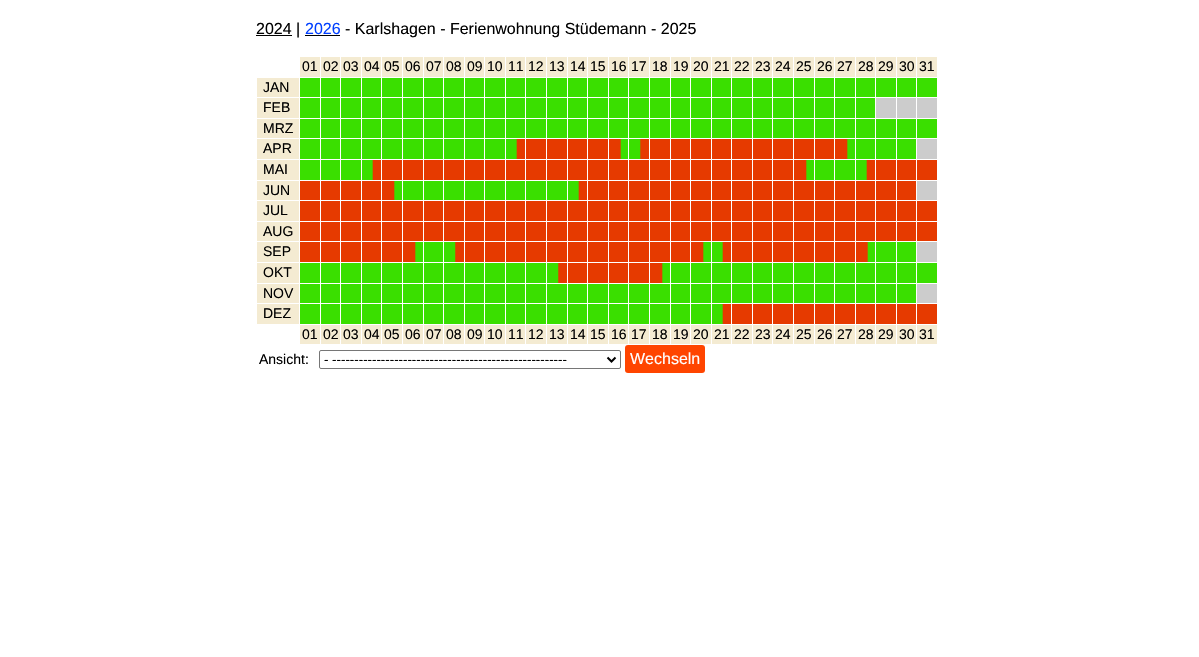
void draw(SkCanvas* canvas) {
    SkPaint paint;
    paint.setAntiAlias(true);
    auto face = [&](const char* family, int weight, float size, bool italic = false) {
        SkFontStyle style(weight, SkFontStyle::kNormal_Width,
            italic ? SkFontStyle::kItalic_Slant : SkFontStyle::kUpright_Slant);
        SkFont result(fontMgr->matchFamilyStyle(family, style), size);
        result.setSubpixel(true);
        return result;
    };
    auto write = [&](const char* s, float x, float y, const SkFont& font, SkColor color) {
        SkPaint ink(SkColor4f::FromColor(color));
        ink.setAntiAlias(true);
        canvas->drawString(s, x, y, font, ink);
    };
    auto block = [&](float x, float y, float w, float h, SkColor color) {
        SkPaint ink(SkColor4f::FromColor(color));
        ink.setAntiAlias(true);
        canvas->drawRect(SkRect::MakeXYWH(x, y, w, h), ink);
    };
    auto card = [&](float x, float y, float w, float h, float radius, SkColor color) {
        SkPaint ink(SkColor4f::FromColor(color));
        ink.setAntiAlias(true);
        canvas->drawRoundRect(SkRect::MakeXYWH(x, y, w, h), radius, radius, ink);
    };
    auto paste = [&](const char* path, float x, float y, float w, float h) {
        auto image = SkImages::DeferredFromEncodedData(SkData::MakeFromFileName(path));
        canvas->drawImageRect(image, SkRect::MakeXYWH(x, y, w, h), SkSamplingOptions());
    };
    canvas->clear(SK_ColorWHITE);
    block(256, 35, 36, 1, SK_ColorBLACK);
    auto kFont1 = face("Liberation Sans", 400, 16);
    write("2024 |", 256, 34, kFont1, SK_ColorBLACK);
    write("2026", 305, 34, kFont1, SkColorSetRGB(0, 63, 255));
    block(305, 35, 35, 1, SK_ColorBLACK);
    write("- Karlshagen - Ferienwohnung Stüdemann - 2025", 345, 34, kFont1, SK_ColorBLACK);
    block(300, 57, 20, 20, SkColorSetRGB(244, 235, 210));
    auto kFont2 = face("Liberation Sans", 400, 14);
    write("01", 302, 71, kFont2, SK_ColorBLACK);
    block(321, 57, 19, 20, SkColorSetRGB(244, 235, 210));
    write("02", 323, 71, kFont2, SK_ColorBLACK);
    block(341, 57, 20, 20, SkColorSetRGB(244, 235, 210));
    write("03", 343, 71, kFont2, SK_ColorBLACK);
    block(362, 57, 19, 20, SkColorSetRGB(244, 235, 210));
    write("04", 364, 71, kFont2, SK_ColorBLACK);
    block(382, 57, 20, 20, SkColorSetRGB(244, 235, 210));
    write("05", 384, 71, kFont2, SK_ColorBLACK);
    block(403, 57, 20, 20, SkColorSetRGB(244, 235, 210));
    write("06", 405, 71, kFont2, SK_ColorBLACK);
    block(424, 57, 19, 20, SkColorSetRGB(244, 235, 210));
    write("07", 426, 71, kFont2, SK_ColorBLACK);
    block(444, 57, 20, 20, SkColorSetRGB(244, 235, 210));
    write("08", 446, 71, kFont2, SK_ColorBLACK);
    block(465, 57, 19, 20, SkColorSetRGB(244, 235, 210));
    write("09", 467, 71, kFont2, SK_ColorBLACK);
    block(485, 57, 20, 20, SkColorSetRGB(244, 235, 210));
    write("10", 487, 71, kFont2, SK_ColorBLACK);
    block(506, 57, 19, 20, SkColorSetRGB(244, 235, 210));
    write("11", 508, 71, kFont2, SK_ColorBLACK);
    block(526, 57, 20, 20, SkColorSetRGB(244, 235, 210));
    write("12", 528, 71, kFont2, SK_ColorBLACK);
    block(547, 57, 20, 20, SkColorSetRGB(244, 235, 210));
    write("13", 549, 71, kFont2, SK_ColorBLACK);
    block(568, 57, 19, 20, SkColorSetRGB(244, 235, 210));
    write("14", 570, 71, kFont2, SK_ColorBLACK);
    block(588, 57, 20, 20, SkColorSetRGB(244, 235, 210));
    write("15", 590, 71, kFont2, SK_ColorBLACK);
    block(609, 57, 19, 20, SkColorSetRGB(244, 235, 210));
    write("16", 611, 71, kFont2, SK_ColorBLACK);
    block(629, 57, 20, 20, SkColorSetRGB(244, 235, 210));
    write("17", 631, 71, kFont2, SK_ColorBLACK);
    block(650, 57, 20, 20, SkColorSetRGB(244, 235, 210));
    write("18", 652, 71, kFont2, SK_ColorBLACK);
    block(671, 57, 19, 20, SkColorSetRGB(244, 235, 210));
    write("19", 673, 71, kFont2, SK_ColorBLACK);
    block(691, 57, 20, 20, SkColorSetRGB(244, 235, 210));
    write("20", 693, 71, kFont2, SK_ColorBLACK);
    block(712, 57, 19, 20, SkColorSetRGB(244, 235, 210));
    write("21", 714, 71, kFont2, SK_ColorBLACK);
    block(732, 57, 20, 20, SkColorSetRGB(244, 235, 210));
    write("22", 734, 71, kFont2, SK_ColorBLACK);
    block(753, 57, 19, 20, SkColorSetRGB(244, 235, 210));
    write("23", 755, 71, kFont2, SK_ColorBLACK);
    block(773, 57, 20, 20, SkColorSetRGB(244, 235, 210));
    write("24", 775, 71, kFont2, SK_ColorBLACK);
    block(794, 57, 20, 20, SkColorSetRGB(244, 235, 210));
    write("25", 796, 71, kFont2, SK_ColorBLACK);
    block(815, 57, 19, 20, SkColorSetRGB(244, 235, 210));
    write("26", 817, 71, kFont2, SK_ColorBLACK);
    block(835, 57, 20, 20, SkColorSetRGB(244, 235, 210));
    write("27", 837, 71, kFont2, SK_ColorBLACK);
    block(856, 57, 19, 20, SkColorSetRGB(244, 235, 210));
    write("28", 858, 71, kFont2, SK_ColorBLACK);
    block(876, 57, 20, 20, SkColorSetRGB(244, 235, 210));
    write("29", 878, 71, kFont2, SK_ColorBLACK);
    block(897, 57, 19, 20, SkColorSetRGB(244, 235, 210));
    write("30", 899, 71, kFont2, SK_ColorBLACK);
    block(917, 57, 20, 20, SkColorSetRGB(244, 235, 210));
    write("31", 919, 71, kFont2, SK_ColorBLACK);
    block(257, 78, 42, 19, SkColorSetRGB(244, 235, 210));
    write("JAN", 263, 92, kFont2, SK_ColorBLACK);
    block(300, 78, 20, 19, SkColorSetRGB(58, 223, 0));
    block(321, 78, 19, 19, SkColorSetRGB(58, 223, 0));
    block(341, 78, 20, 19, SkColorSetRGB(58, 223, 0));
    block(362, 78, 19, 19, SkColorSetRGB(58, 223, 0));
    block(382, 78, 20, 19, SkColorSetRGB(58, 223, 0));
    block(403, 78, 20, 19, SkColorSetRGB(58, 223, 0));
    block(424, 78, 19, 19, SkColorSetRGB(58, 223, 0));
    block(444, 78, 20, 19, SkColorSetRGB(58, 223, 0));
    block(465, 78, 19, 19, SkColorSetRGB(58, 223, 0));
    block(485, 78, 20, 19, SkColorSetRGB(58, 223, 0));
    block(506, 78, 19, 19, SkColorSetRGB(58, 223, 0));
    block(526, 78, 20, 19, SkColorSetRGB(58, 223, 0));
    block(547, 78, 20, 19, SkColorSetRGB(58, 223, 0));
    block(568, 78, 19, 19, SkColorSetRGB(58, 223, 0));
    block(588, 78, 20, 19, SkColorSetRGB(58, 223, 0));
    block(609, 78, 19, 19, SkColorSetRGB(58, 223, 0));
    block(629, 78, 20, 19, SkColorSetRGB(58, 223, 0));
    block(650, 78, 20, 19, SkColorSetRGB(58, 223, 0));
    block(671, 78, 19, 19, SkColorSetRGB(58, 223, 0));
    block(691, 78, 20, 19, SkColorSetRGB(58, 223, 0));
    block(712, 78, 19, 19, SkColorSetRGB(58, 223, 0));
    block(732, 78, 20, 19, SkColorSetRGB(58, 223, 0));
    block(753, 78, 19, 19, SkColorSetRGB(58, 223, 0));
    block(773, 78, 20, 19, SkColorSetRGB(58, 223, 0));
    block(794, 78, 20, 19, SkColorSetRGB(58, 223, 0));
    block(815, 78, 19, 19, SkColorSetRGB(58, 223, 0));
    block(835, 78, 20, 19, SkColorSetRGB(58, 223, 0));
    block(856, 78, 19, 19, SkColorSetRGB(58, 223, 0));
    block(876, 78, 20, 19, SkColorSetRGB(58, 223, 0));
    block(897, 78, 19, 19, SkColorSetRGB(58, 223, 0));
    block(917, 78, 20, 19, SkColorSetRGB(58, 223, 0));
    block(257, 98, 42, 20, SkColorSetRGB(244, 235, 210));
    write("FEB", 263, 112, kFont2, SK_ColorBLACK);
    block(300, 98, 20, 20, SkColorSetRGB(58, 223, 0));
    block(321, 98, 19, 20, SkColorSetRGB(58, 223, 0));
    block(341, 98, 20, 20, SkColorSetRGB(58, 223, 0));
    block(362, 98, 19, 20, SkColorSetRGB(58, 223, 0));
    block(382, 98, 20, 20, SkColorSetRGB(58, 223, 0));
    block(403, 98, 20, 20, SkColorSetRGB(58, 223, 0));
    block(424, 98, 19, 20, SkColorSetRGB(58, 223, 0));
    block(444, 98, 20, 20, SkColorSetRGB(58, 223, 0));
    block(465, 98, 19, 20, SkColorSetRGB(58, 223, 0));
    block(485, 98, 20, 20, SkColorSetRGB(58, 223, 0));
    block(506, 98, 19, 20, SkColorSetRGB(58, 223, 0));
    block(526, 98, 20, 20, SkColorSetRGB(58, 223, 0));
    block(547, 98, 20, 20, SkColorSetRGB(58, 223, 0));
    block(568, 98, 19, 20, SkColorSetRGB(58, 223, 0));
    block(588, 98, 20, 20, SkColorSetRGB(58, 223, 0));
    block(609, 98, 19, 20, SkColorSetRGB(58, 223, 0));
    block(629, 98, 20, 20, SkColorSetRGB(58, 223, 0));
    block(650, 98, 20, 20, SkColorSetRGB(58, 223, 0));
    block(671, 98, 19, 20, SkColorSetRGB(58, 223, 0));
    block(691, 98, 20, 20, SkColorSetRGB(58, 223, 0));
    block(712, 98, 19, 20, SkColorSetRGB(58, 223, 0));
    block(732, 98, 20, 20, SkColorSetRGB(58, 223, 0));
    block(753, 98, 19, 20, SkColorSetRGB(58, 223, 0));
    block(773, 98, 20, 20, SkColorSetRGB(58, 223, 0));
    block(794, 98, 20, 20, SkColorSetRGB(58, 223, 0));
    block(815, 98, 19, 20, SkColorSetRGB(58, 223, 0));
    block(835, 98, 20, 20, SkColorSetRGB(58, 223, 0));
    block(856, 98, 19, 20, SkColorSetRGB(58, 223, 0));
    block(876, 98, 20, 20, SkColorSetRGB(204, 204, 204));
    block(897, 98, 19, 20, SkColorSetRGB(204, 204, 204));
    block(917, 98, 20, 20, SkColorSetRGB(204, 204, 204));
    block(257, 119, 42, 19, SkColorSetRGB(244, 235, 210));
    write("MRZ", 263, 133, kFont2, SK_ColorBLACK);
    block(300, 119, 20, 19, SkColorSetRGB(58, 223, 0));
    block(321, 119, 19, 19, SkColorSetRGB(58, 223, 0));
    block(341, 119, 20, 19, SkColorSetRGB(58, 223, 0));
    block(362, 119, 19, 19, SkColorSetRGB(58, 223, 0));
    block(382, 119, 20, 19, SkColorSetRGB(58, 223, 0));
    block(403, 119, 20, 19, SkColorSetRGB(58, 223, 0));
    block(424, 119, 19, 19, SkColorSetRGB(58, 223, 0));
    block(444, 119, 20, 19, SkColorSetRGB(58, 223, 0));
    block(465, 119, 19, 19, SkColorSetRGB(58, 223, 0));
    block(485, 119, 20, 19, SkColorSetRGB(58, 223, 0));
    block(506, 119, 19, 19, SkColorSetRGB(58, 223, 0));
    block(526, 119, 20, 19, SkColorSetRGB(58, 223, 0));
    block(547, 119, 20, 19, SkColorSetRGB(58, 223, 0));
    block(568, 119, 19, 19, SkColorSetRGB(58, 223, 0));
    block(588, 119, 20, 19, SkColorSetRGB(58, 223, 0));
    block(609, 119, 19, 19, SkColorSetRGB(58, 223, 0));
    block(629, 119, 20, 19, SkColorSetRGB(58, 223, 0));
    block(650, 119, 20, 19, SkColorSetRGB(58, 223, 0));
    block(671, 119, 19, 19, SkColorSetRGB(58, 223, 0));
    block(691, 119, 20, 19, SkColorSetRGB(58, 223, 0));
    block(712, 119, 19, 19, SkColorSetRGB(58, 223, 0));
    block(732, 119, 20, 19, SkColorSetRGB(58, 223, 0));
    block(753, 119, 19, 19, SkColorSetRGB(58, 223, 0));
    block(773, 119, 20, 19, SkColorSetRGB(58, 223, 0));
    block(794, 119, 20, 19, SkColorSetRGB(58, 223, 0));
    block(815, 119, 19, 19, SkColorSetRGB(58, 223, 0));
    block(835, 119, 20, 19, SkColorSetRGB(58, 223, 0));
    block(856, 119, 19, 19, SkColorSetRGB(58, 223, 0));
    block(876, 119, 20, 19, SkColorSetRGB(58, 223, 0));
    block(897, 119, 19, 19, SkColorSetRGB(58, 223, 0));
    block(917, 119, 20, 19, SkColorSetRGB(58, 223, 0));
    block(257, 139, 42, 20, SkColorSetRGB(244, 235, 210));
    write("APR", 263, 153, kFont2, SK_ColorBLACK);
    block(300, 139, 20, 20, SkColorSetRGB(58, 223, 0));
    block(321, 139, 19, 20, SkColorSetRGB(58, 223, 0));
    block(341, 139, 20, 20, SkColorSetRGB(58, 223, 0));
    block(362, 139, 19, 20, SkColorSetRGB(58, 223, 0));
    block(382, 139, 20, 20, SkColorSetRGB(58, 223, 0));
    block(403, 139, 20, 20, SkColorSetRGB(58, 223, 0));
    block(424, 139, 19, 20, SkColorSetRGB(58, 223, 0));
    block(444, 139, 20, 20, SkColorSetRGB(58, 223, 0));
    block(465, 139, 19, 20, SkColorSetRGB(58, 223, 0));
    block(485, 139, 20, 20, SkColorSetRGB(58, 223, 0));
    paste("pic1.png", 506, 139, 19, 20);
    block(526, 139, 20, 20, SkColorSetRGB(230, 58, 0));
    block(547, 139, 20, 20, SkColorSetRGB(230, 58, 0));
    block(568, 139, 19, 20, SkColorSetRGB(230, 58, 0));
    block(588, 139, 20, 20, SkColorSetRGB(230, 58, 0));
    paste("pic2.png", 609, 139, 19, 20);
    paste("pic3.png", 629, 139, 20, 20);
    block(650, 139, 20, 20, SkColorSetRGB(230, 58, 0));
    block(671, 139, 19, 20, SkColorSetRGB(230, 58, 0));
    block(691, 139, 20, 20, SkColorSetRGB(230, 58, 0));
    block(712, 139, 19, 20, SkColorSetRGB(230, 58, 0));
    block(732, 139, 20, 20, SkColorSetRGB(230, 58, 0));
    block(753, 139, 19, 20, SkColorSetRGB(230, 58, 0));
    block(773, 139, 20, 20, SkColorSetRGB(230, 58, 0));
    block(794, 139, 20, 20, SkColorSetRGB(230, 58, 0));
    block(815, 139, 19, 20, SkColorSetRGB(230, 58, 0));
    paste("pic4.png", 835, 139, 20, 20);
    block(856, 139, 19, 20, SkColorSetRGB(58, 223, 0));
    block(876, 139, 20, 20, SkColorSetRGB(58, 223, 0));
    block(897, 139, 19, 20, SkColorSetRGB(58, 223, 0));
    block(917, 139, 20, 20, SkColorSetRGB(204, 204, 204));
    block(257, 160, 42, 20, SkColorSetRGB(244, 235, 210));
    write("MAI", 263, 174, kFont2, SK_ColorBLACK);
    block(300, 160, 20, 20, SkColorSetRGB(58, 223, 0));
    block(321, 160, 19, 20, SkColorSetRGB(58, 223, 0));
    block(341, 160, 20, 20, SkColorSetRGB(58, 223, 0));
    paste("pic1.png", 362, 160, 19, 20);
    block(382, 160, 20, 20, SkColorSetRGB(230, 58, 0));
    block(403, 160, 20, 20, SkColorSetRGB(230, 58, 0));
    block(424, 160, 19, 20, SkColorSetRGB(230, 58, 0));
    block(444, 160, 20, 20, SkColorSetRGB(230, 58, 0));
    block(465, 160, 19, 20, SkColorSetRGB(230, 58, 0));
    block(485, 160, 20, 20, SkColorSetRGB(230, 58, 0));
    block(506, 160, 19, 20, SkColorSetRGB(230, 58, 0));
    block(526, 160, 20, 20, SkColorSetRGB(230, 58, 0));
    block(547, 160, 20, 20, SkColorSetRGB(230, 58, 0));
    block(568, 160, 19, 20, SkColorSetRGB(230, 58, 0));
    block(588, 160, 20, 20, SkColorSetRGB(230, 58, 0));
    block(609, 160, 19, 20, SkColorSetRGB(230, 58, 0));
    block(629, 160, 20, 20, SkColorSetRGB(230, 58, 0));
    block(650, 160, 20, 20, SkColorSetRGB(230, 58, 0));
    block(671, 160, 19, 20, SkColorSetRGB(230, 58, 0));
    block(691, 160, 20, 20, SkColorSetRGB(230, 58, 0));
    block(712, 160, 19, 20, SkColorSetRGB(230, 58, 0));
    block(732, 160, 20, 20, SkColorSetRGB(230, 58, 0));
    block(753, 160, 19, 20, SkColorSetRGB(230, 58, 0));
    block(773, 160, 20, 20, SkColorSetRGB(230, 58, 0));
    paste("pic4.png", 794, 160, 20, 20);
    block(815, 160, 19, 20, SkColorSetRGB(58, 223, 0));
    block(835, 160, 20, 20, SkColorSetRGB(58, 223, 0));
    paste("pic1.png", 856, 160, 19, 20);
    block(876, 160, 20, 20, SkColorSetRGB(230, 58, 0));
    block(897, 160, 19, 20, SkColorSetRGB(230, 58, 0));
    block(917, 160, 20, 20, SkColorSetRGB(230, 58, 0));
    block(257, 181, 42, 19, SkColorSetRGB(244, 235, 210));
    write("JUN", 263, 195, kFont2, SK_ColorBLACK);
    block(300, 181, 20, 19, SkColorSetRGB(230, 58, 0));
    block(321, 181, 19, 19, SkColorSetRGB(230, 58, 0));
    block(341, 181, 20, 19, SkColorSetRGB(230, 58, 0));
    block(362, 181, 19, 19, SkColorSetRGB(230, 58, 0));
    paste("pic5.png", 382, 181, 20, 19);
    block(403, 181, 20, 19, SkColorSetRGB(58, 223, 0));
    block(424, 181, 19, 19, SkColorSetRGB(58, 223, 0));
    block(444, 181, 20, 19, SkColorSetRGB(58, 223, 0));
    block(465, 181, 19, 19, SkColorSetRGB(58, 223, 0));
    block(485, 181, 20, 19, SkColorSetRGB(58, 223, 0));
    block(506, 181, 19, 19, SkColorSetRGB(58, 223, 0));
    block(526, 181, 20, 19, SkColorSetRGB(58, 223, 0));
    block(547, 181, 20, 19, SkColorSetRGB(58, 223, 0));
    paste("pic6.png", 568, 181, 19, 19);
    block(588, 181, 20, 19, SkColorSetRGB(230, 58, 0));
    block(609, 181, 19, 19, SkColorSetRGB(230, 58, 0));
    block(629, 181, 20, 19, SkColorSetRGB(230, 58, 0));
    block(650, 181, 20, 19, SkColorSetRGB(230, 58, 0));
    block(671, 181, 19, 19, SkColorSetRGB(230, 58, 0));
    block(691, 181, 20, 19, SkColorSetRGB(230, 58, 0));
    block(712, 181, 19, 19, SkColorSetRGB(230, 58, 0));
    block(732, 181, 20, 19, SkColorSetRGB(230, 58, 0));
    block(753, 181, 19, 19, SkColorSetRGB(230, 58, 0));
    block(773, 181, 20, 19, SkColorSetRGB(230, 58, 0));
    block(794, 181, 20, 19, SkColorSetRGB(230, 58, 0));
    block(815, 181, 19, 19, SkColorSetRGB(230, 58, 0));
    block(835, 181, 20, 19, SkColorSetRGB(230, 58, 0));
    block(856, 181, 19, 19, SkColorSetRGB(230, 58, 0));
    block(876, 181, 20, 19, SkColorSetRGB(230, 58, 0));
    block(897, 181, 19, 19, SkColorSetRGB(230, 58, 0));
    block(917, 181, 20, 19, SkColorSetRGB(204, 204, 204));
    block(257, 201, 42, 20, SkColorSetRGB(244, 235, 210));
    write("JUL", 263, 215, kFont2, SK_ColorBLACK);
    block(300, 201, 20, 20, SkColorSetRGB(230, 58, 0));
    block(321, 201, 19, 20, SkColorSetRGB(230, 58, 0));
    block(341, 201, 20, 20, SkColorSetRGB(230, 58, 0));
    block(362, 201, 19, 20, SkColorSetRGB(230, 58, 0));
    block(382, 201, 20, 20, SkColorSetRGB(230, 58, 0));
    block(403, 201, 20, 20, SkColorSetRGB(230, 58, 0));
    block(424, 201, 19, 20, SkColorSetRGB(230, 58, 0));
    block(444, 201, 20, 20, SkColorSetRGB(230, 58, 0));
    block(465, 201, 19, 20, SkColorSetRGB(230, 58, 0));
    block(485, 201, 20, 20, SkColorSetRGB(230, 58, 0));
    block(506, 201, 19, 20, SkColorSetRGB(230, 58, 0));
    block(526, 201, 20, 20, SkColorSetRGB(230, 58, 0));
    block(547, 201, 20, 20, SkColorSetRGB(230, 58, 0));
    block(568, 201, 19, 20, SkColorSetRGB(230, 58, 0));
    block(588, 201, 20, 20, SkColorSetRGB(230, 58, 0));
    block(609, 201, 19, 20, SkColorSetRGB(230, 58, 0));
    block(629, 201, 20, 20, SkColorSetRGB(230, 58, 0));
    block(650, 201, 20, 20, SkColorSetRGB(230, 58, 0));
    block(671, 201, 19, 20, SkColorSetRGB(230, 58, 0));
    block(691, 201, 20, 20, SkColorSetRGB(230, 58, 0));
    block(712, 201, 19, 20, SkColorSetRGB(230, 58, 0));
    block(732, 201, 20, 20, SkColorSetRGB(230, 58, 0));
    block(753, 201, 19, 20, SkColorSetRGB(230, 58, 0));
    block(773, 201, 20, 20, SkColorSetRGB(230, 58, 0));
    block(794, 201, 20, 20, SkColorSetRGB(230, 58, 0));
    block(815, 201, 19, 20, SkColorSetRGB(230, 58, 0));
    block(835, 201, 20, 20, SkColorSetRGB(230, 58, 0));
    block(856, 201, 19, 20, SkColorSetRGB(230, 58, 0));
    block(876, 201, 20, 20, SkColorSetRGB(230, 58, 0));
    block(897, 201, 19, 20, SkColorSetRGB(230, 58, 0));
    block(917, 201, 20, 20, SkColorSetRGB(230, 58, 0));
    block(257, 222, 42, 19, SkColorSetRGB(244, 235, 210));
    write("AUG", 263, 236, kFont2, SK_ColorBLACK);
    block(300, 222, 20, 19, SkColorSetRGB(230, 58, 0));
    block(321, 222, 19, 19, SkColorSetRGB(230, 58, 0));
    block(341, 222, 20, 19, SkColorSetRGB(230, 58, 0));
    block(362, 222, 19, 19, SkColorSetRGB(230, 58, 0));
    block(382, 222, 20, 19, SkColorSetRGB(230, 58, 0));
    block(403, 222, 20, 19, SkColorSetRGB(230, 58, 0));
    block(424, 222, 19, 19, SkColorSetRGB(230, 58, 0));
    block(444, 222, 20, 19, SkColorSetRGB(230, 58, 0));
    block(465, 222, 19, 19, SkColorSetRGB(230, 58, 0));
    block(485, 222, 20, 19, SkColorSetRGB(230, 58, 0));
    block(506, 222, 19, 19, SkColorSetRGB(230, 58, 0));
    block(526, 222, 20, 19, SkColorSetRGB(230, 58, 0));
    block(547, 222, 20, 19, SkColorSetRGB(230, 58, 0));
    block(568, 222, 19, 19, SkColorSetRGB(230, 58, 0));
    block(588, 222, 20, 19, SkColorSetRGB(230, 58, 0));
    block(609, 222, 19, 19, SkColorSetRGB(230, 58, 0));
    block(629, 222, 20, 19, SkColorSetRGB(230, 58, 0));
    block(650, 222, 20, 19, SkColorSetRGB(230, 58, 0));
    block(671, 222, 19, 19, SkColorSetRGB(230, 58, 0));
    block(691, 222, 20, 19, SkColorSetRGB(230, 58, 0));
    block(712, 222, 19, 19, SkColorSetRGB(230, 58, 0));
    block(732, 222, 20, 19, SkColorSetRGB(230, 58, 0));
    block(753, 222, 19, 19, SkColorSetRGB(230, 58, 0));
    block(773, 222, 20, 19, SkColorSetRGB(230, 58, 0));
    block(794, 222, 20, 19, SkColorSetRGB(230, 58, 0));
    block(815, 222, 19, 19, SkColorSetRGB(230, 58, 0));
    block(835, 222, 20, 19, SkColorSetRGB(230, 58, 0));
    block(856, 222, 19, 19, SkColorSetRGB(230, 58, 0));
    block(876, 222, 20, 19, SkColorSetRGB(230, 58, 0));
    block(897, 222, 19, 19, SkColorSetRGB(230, 58, 0));
    block(917, 222, 20, 19, SkColorSetRGB(230, 58, 0));
    block(257, 242, 42, 20, SkColorSetRGB(244, 235, 210));
    write("SEP", 263, 256, kFont2, SK_ColorBLACK);
    block(300, 242, 20, 20, SkColorSetRGB(230, 58, 0));
    block(321, 242, 19, 20, SkColorSetRGB(230, 58, 0));
    block(341, 242, 20, 20, SkColorSetRGB(230, 58, 0));
    block(362, 242, 19, 20, SkColorSetRGB(230, 58, 0));
    block(382, 242, 20, 20, SkColorSetRGB(230, 58, 0));
    paste("pic4.png", 403, 242, 20, 20);
    block(424, 242, 19, 20, SkColorSetRGB(58, 223, 0));
    paste("pic3.png", 444, 242, 20, 20);
    block(465, 242, 19, 20, SkColorSetRGB(230, 58, 0));
    block(485, 242, 20, 20, SkColorSetRGB(230, 58, 0));
    block(506, 242, 19, 20, SkColorSetRGB(230, 58, 0));
    block(526, 242, 20, 20, SkColorSetRGB(230, 58, 0));
    block(547, 242, 20, 20, SkColorSetRGB(230, 58, 0));
    block(568, 242, 19, 20, SkColorSetRGB(230, 58, 0));
    block(588, 242, 20, 20, SkColorSetRGB(230, 58, 0));
    block(609, 242, 19, 20, SkColorSetRGB(230, 58, 0));
    block(629, 242, 20, 20, SkColorSetRGB(230, 58, 0));
    block(650, 242, 20, 20, SkColorSetRGB(230, 58, 0));
    block(671, 242, 19, 20, SkColorSetRGB(230, 58, 0));
    paste("pic4.png", 691, 242, 20, 20);
    paste("pic1.png", 712, 242, 19, 20);
    block(732, 242, 20, 20, SkColorSetRGB(230, 58, 0));
    block(753, 242, 19, 20, SkColorSetRGB(230, 58, 0));
    block(773, 242, 20, 20, SkColorSetRGB(230, 58, 0));
    block(794, 242, 20, 20, SkColorSetRGB(230, 58, 0));
    block(815, 242, 19, 20, SkColorSetRGB(230, 58, 0));
    block(835, 242, 20, 20, SkColorSetRGB(230, 58, 0));
    paste("pic2.png", 856, 242, 19, 20);
    block(876, 242, 20, 20, SkColorSetRGB(58, 223, 0));
    block(897, 242, 19, 20, SkColorSetRGB(58, 223, 0));
    block(917, 242, 20, 20, SkColorSetRGB(204, 204, 204));
    block(257, 263, 42, 20, SkColorSetRGB(244, 235, 210));
    write("OKT", 263, 277, kFont2, SK_ColorBLACK);
    block(300, 263, 20, 20, SkColorSetRGB(58, 223, 0));
    block(321, 263, 19, 20, SkColorSetRGB(58, 223, 0));
    block(341, 263, 20, 20, SkColorSetRGB(58, 223, 0));
    block(362, 263, 19, 20, SkColorSetRGB(58, 223, 0));
    block(382, 263, 20, 20, SkColorSetRGB(58, 223, 0));
    block(403, 263, 20, 20, SkColorSetRGB(58, 223, 0));
    block(424, 263, 19, 20, SkColorSetRGB(58, 223, 0));
    block(444, 263, 20, 20, SkColorSetRGB(58, 223, 0));
    block(465, 263, 19, 20, SkColorSetRGB(58, 223, 0));
    block(485, 263, 20, 20, SkColorSetRGB(58, 223, 0));
    block(506, 263, 19, 20, SkColorSetRGB(58, 223, 0));
    block(526, 263, 20, 20, SkColorSetRGB(58, 223, 0));
    paste("pic3.png", 547, 263, 20, 20);
    block(568, 263, 19, 20, SkColorSetRGB(230, 58, 0));
    block(588, 263, 20, 20, SkColorSetRGB(230, 58, 0));
    block(609, 263, 19, 20, SkColorSetRGB(230, 58, 0));
    block(629, 263, 20, 20, SkColorSetRGB(230, 58, 0));
    paste("pic4.png", 650, 263, 20, 20);
    block(671, 263, 19, 20, SkColorSetRGB(58, 223, 0));
    block(691, 263, 20, 20, SkColorSetRGB(58, 223, 0));
    block(712, 263, 19, 20, SkColorSetRGB(58, 223, 0));
    block(732, 263, 20, 20, SkColorSetRGB(58, 223, 0));
    block(753, 263, 19, 20, SkColorSetRGB(58, 223, 0));
    block(773, 263, 20, 20, SkColorSetRGB(58, 223, 0));
    block(794, 263, 20, 20, SkColorSetRGB(58, 223, 0));
    block(815, 263, 19, 20, SkColorSetRGB(58, 223, 0));
    block(835, 263, 20, 20, SkColorSetRGB(58, 223, 0));
    block(856, 263, 19, 20, SkColorSetRGB(58, 223, 0));
    block(876, 263, 20, 20, SkColorSetRGB(58, 223, 0));
    block(897, 263, 19, 20, SkColorSetRGB(58, 223, 0));
    block(917, 263, 20, 20, SkColorSetRGB(58, 223, 0));
    block(257, 284, 42, 19, SkColorSetRGB(244, 235, 210));
    write("NOV", 263, 298, kFont2, SK_ColorBLACK);
    block(300, 284, 20, 19, SkColorSetRGB(58, 223, 0));
    block(321, 284, 19, 19, SkColorSetRGB(58, 223, 0));
    block(341, 284, 20, 19, SkColorSetRGB(58, 223, 0));
    block(362, 284, 19, 19, SkColorSetRGB(58, 223, 0));
    block(382, 284, 20, 19, SkColorSetRGB(58, 223, 0));
    block(403, 284, 20, 19, SkColorSetRGB(58, 223, 0));
    block(424, 284, 19, 19, SkColorSetRGB(58, 223, 0));
    block(444, 284, 20, 19, SkColorSetRGB(58, 223, 0));
    block(465, 284, 19, 19, SkColorSetRGB(58, 223, 0));
    block(485, 284, 20, 19, SkColorSetRGB(58, 223, 0));
    block(506, 284, 19, 19, SkColorSetRGB(58, 223, 0));
    block(526, 284, 20, 19, SkColorSetRGB(58, 223, 0));
    block(547, 284, 20, 19, SkColorSetRGB(58, 223, 0));
    block(568, 284, 19, 19, SkColorSetRGB(58, 223, 0));
    block(588, 284, 20, 19, SkColorSetRGB(58, 223, 0));
    block(609, 284, 19, 19, SkColorSetRGB(58, 223, 0));
    block(629, 284, 20, 19, SkColorSetRGB(58, 223, 0));
    block(650, 284, 20, 19, SkColorSetRGB(58, 223, 0));
    block(671, 284, 19, 19, SkColorSetRGB(58, 223, 0));
    block(691, 284, 20, 19, SkColorSetRGB(58, 223, 0));
    block(712, 284, 19, 19, SkColorSetRGB(58, 223, 0));
    block(732, 284, 20, 19, SkColorSetRGB(58, 223, 0));
    block(753, 284, 19, 19, SkColorSetRGB(58, 223, 0));
    block(773, 284, 20, 19, SkColorSetRGB(58, 223, 0));
    block(794, 284, 20, 19, SkColorSetRGB(58, 223, 0));
    block(815, 284, 19, 19, SkColorSetRGB(58, 223, 0));
    block(835, 284, 20, 19, SkColorSetRGB(58, 223, 0));
    block(856, 284, 19, 19, SkColorSetRGB(58, 223, 0));
    block(876, 284, 20, 19, SkColorSetRGB(58, 223, 0));
    block(897, 284, 19, 19, SkColorSetRGB(58, 223, 0));
    block(917, 284, 20, 19, SkColorSetRGB(204, 204, 204));
    block(257, 304, 42, 20, SkColorSetRGB(244, 235, 210));
    write("DEZ", 263, 318, kFont2, SK_ColorBLACK);
    block(300, 304, 20, 20, SkColorSetRGB(58, 223, 0));
    block(321, 304, 19, 20, SkColorSetRGB(58, 223, 0));
    block(341, 304, 20, 20, SkColorSetRGB(58, 223, 0));
    block(362, 304, 19, 20, SkColorSetRGB(58, 223, 0));
    block(382, 304, 20, 20, SkColorSetRGB(58, 223, 0));
    block(403, 304, 20, 20, SkColorSetRGB(58, 223, 0));
    block(424, 304, 19, 20, SkColorSetRGB(58, 223, 0));
    block(444, 304, 20, 20, SkColorSetRGB(58, 223, 0));
    block(465, 304, 19, 20, SkColorSetRGB(58, 223, 0));
    block(485, 304, 20, 20, SkColorSetRGB(58, 223, 0));
    block(506, 304, 19, 20, SkColorSetRGB(58, 223, 0));
    block(526, 304, 20, 20, SkColorSetRGB(58, 223, 0));
    block(547, 304, 20, 20, SkColorSetRGB(58, 223, 0));
    block(568, 304, 19, 20, SkColorSetRGB(58, 223, 0));
    block(588, 304, 20, 20, SkColorSetRGB(58, 223, 0));
    block(609, 304, 19, 20, SkColorSetRGB(58, 223, 0));
    block(629, 304, 20, 20, SkColorSetRGB(58, 223, 0));
    block(650, 304, 20, 20, SkColorSetRGB(58, 223, 0));
    block(671, 304, 19, 20, SkColorSetRGB(58, 223, 0));
    block(691, 304, 20, 20, SkColorSetRGB(58, 223, 0));
    paste("pic1.png", 712, 304, 19, 20);
    block(732, 304, 20, 20, SkColorSetRGB(230, 58, 0));
    block(753, 304, 19, 20, SkColorSetRGB(230, 58, 0));
    block(773, 304, 20, 20, SkColorSetRGB(230, 58, 0));
    block(794, 304, 20, 20, SkColorSetRGB(230, 58, 0));
    block(815, 304, 19, 20, SkColorSetRGB(230, 58, 0));
    block(835, 304, 20, 20, SkColorSetRGB(230, 58, 0));
    block(856, 304, 19, 20, SkColorSetRGB(230, 58, 0));
    block(876, 304, 20, 20, SkColorSetRGB(230, 58, 0));
    block(897, 304, 19, 20, SkColorSetRGB(230, 58, 0));
    block(917, 304, 20, 20, SkColorSetRGB(230, 58, 0));
    block(300, 325, 20, 19, SkColorSetRGB(244, 235, 210));
    write("01", 302, 339, kFont2, SK_ColorBLACK);
    block(321, 325, 19, 19, SkColorSetRGB(244, 235, 210));
    write("02", 323, 339, kFont2, SK_ColorBLACK);
    block(341, 325, 20, 19, SkColorSetRGB(244, 235, 210));
    write("03", 343, 339, kFont2, SK_ColorBLACK);
    block(362, 325, 19, 19, SkColorSetRGB(244, 235, 210));
    write("04", 364, 339, kFont2, SK_ColorBLACK);
    block(382, 325, 20, 19, SkColorSetRGB(244, 235, 210));
    write("05", 384, 339, kFont2, SK_ColorBLACK);
    block(403, 325, 20, 19, SkColorSetRGB(244, 235, 210));
    write("06", 405, 339, kFont2, SK_ColorBLACK);
    block(424, 325, 19, 19, SkColorSetRGB(244, 235, 210));
    write("07", 426, 339, kFont2, SK_ColorBLACK);
    block(444, 325, 20, 19, SkColorSetRGB(244, 235, 210));
    write("08", 446, 339, kFont2, SK_ColorBLACK);
    block(465, 325, 19, 19, SkColorSetRGB(244, 235, 210));
    write("09", 467, 339, kFont2, SK_ColorBLACK);
    block(485, 325, 20, 19, SkColorSetRGB(244, 235, 210));
    write("10", 487, 339, kFont2, SK_ColorBLACK);
    block(506, 325, 19, 19, SkColorSetRGB(244, 235, 210));
    write("11", 508, 339, kFont2, SK_ColorBLACK);
    block(526, 325, 20, 19, SkColorSetRGB(244, 235, 210));
    write("12", 528, 339, kFont2, SK_ColorBLACK);
    block(547, 325, 20, 19, SkColorSetRGB(244, 235, 210));
    write("13", 549, 339, kFont2, SK_ColorBLACK);
    block(568, 325, 19, 19, SkColorSetRGB(244, 235, 210));
    write("14", 570, 339, kFont2, SK_ColorBLACK);
    block(588, 325, 20, 19, SkColorSetRGB(244, 235, 210));
    write("15", 590, 339, kFont2, SK_ColorBLACK);
    block(609, 325, 19, 19, SkColorSetRGB(244, 235, 210));
    write("16", 611, 339, kFont2, SK_ColorBLACK);
    block(629, 325, 20, 19, SkColorSetRGB(244, 235, 210));
    write("17", 631, 339, kFont2, SK_ColorBLACK);
    block(650, 325, 20, 19, SkColorSetRGB(244, 235, 210));
    write("18", 652, 339, kFont2, SK_ColorBLACK);
    block(671, 325, 19, 19, SkColorSetRGB(244, 235, 210));
    write("19", 673, 339, kFont2, SK_ColorBLACK);
    block(691, 325, 20, 19, SkColorSetRGB(244, 235, 210));
    write("20", 693, 339, kFont2, SK_ColorBLACK);
    block(712, 325, 19, 19, SkColorSetRGB(244, 235, 210));
    write("21", 714, 339, kFont2, SK_ColorBLACK);
    block(732, 325, 20, 19, SkColorSetRGB(244, 235, 210));
    write("22", 734, 339, kFont2, SK_ColorBLACK);
    block(753, 325, 19, 19, SkColorSetRGB(244, 235, 210));
    write("23", 755, 339, kFont2, SK_ColorBLACK);
    block(773, 325, 20, 19, SkColorSetRGB(244, 235, 210));
    write("24", 775, 339, kFont2, SK_ColorBLACK);
    block(794, 325, 20, 19, SkColorSetRGB(244, 235, 210));
    write("25", 796, 339, kFont2, SK_ColorBLACK);
    block(815, 325, 19, 19, SkColorSetRGB(244, 235, 210));
    write("26", 817, 339, kFont2, SK_ColorBLACK);
    block(835, 325, 20, 19, SkColorSetRGB(244, 235, 210));
    write("27", 837, 339, kFont2, SK_ColorBLACK);
    block(856, 325, 19, 19, SkColorSetRGB(244, 235, 210));
    write("28", 858, 339, kFont2, SK_ColorBLACK);
    block(876, 325, 20, 19, SkColorSetRGB(244, 235, 210));
    write("29", 878, 339, kFont2, SK_ColorBLACK);
    block(897, 325, 19, 19, SkColorSetRGB(244, 235, 210));
    write("30", 899, 339, kFont2, SK_ColorBLACK);
    block(917, 325, 20, 19, SkColorSetRGB(244, 235, 210));
    write("31", 919, 339, kFont2, SK_ColorBLACK);
    write("Ansicht:", 259, 364, kFont2, SK_ColorBLACK);
    paint.setStyle(SkPaint::kStroke_Style);
    paint.setStrokeWidth(1);
    paint.setColor(SkColorSetRGB(118, 118, 118));
    canvas->drawRoundRect(SkRect::MakeXYWH(319.5f, 350.5f, 301, 18), 1.5f, 1.5f, paint);
    paint.setStrokeWidth(2);
    paint.setColor(SK_ColorBLACK);
    canvas->drawPath(SkPathBuilder().moveTo(607.5f, 357.5f).lineTo(611.5f, 361.5f).lineTo(615.5f, 357.5f).detach(), paint);
    auto kFont3 = face("Liberation Sans", 400, 13.3f);
    write("- -----------------------------------------------------", 324, 364, kFont3, SK_ColorBLACK);
    card(625, 345, 80, 28, 3, SkColorSetRGB(255, 69, 0));
    write("Wechseln", 630, 364, kFont1, SK_ColorWHITE);
}
